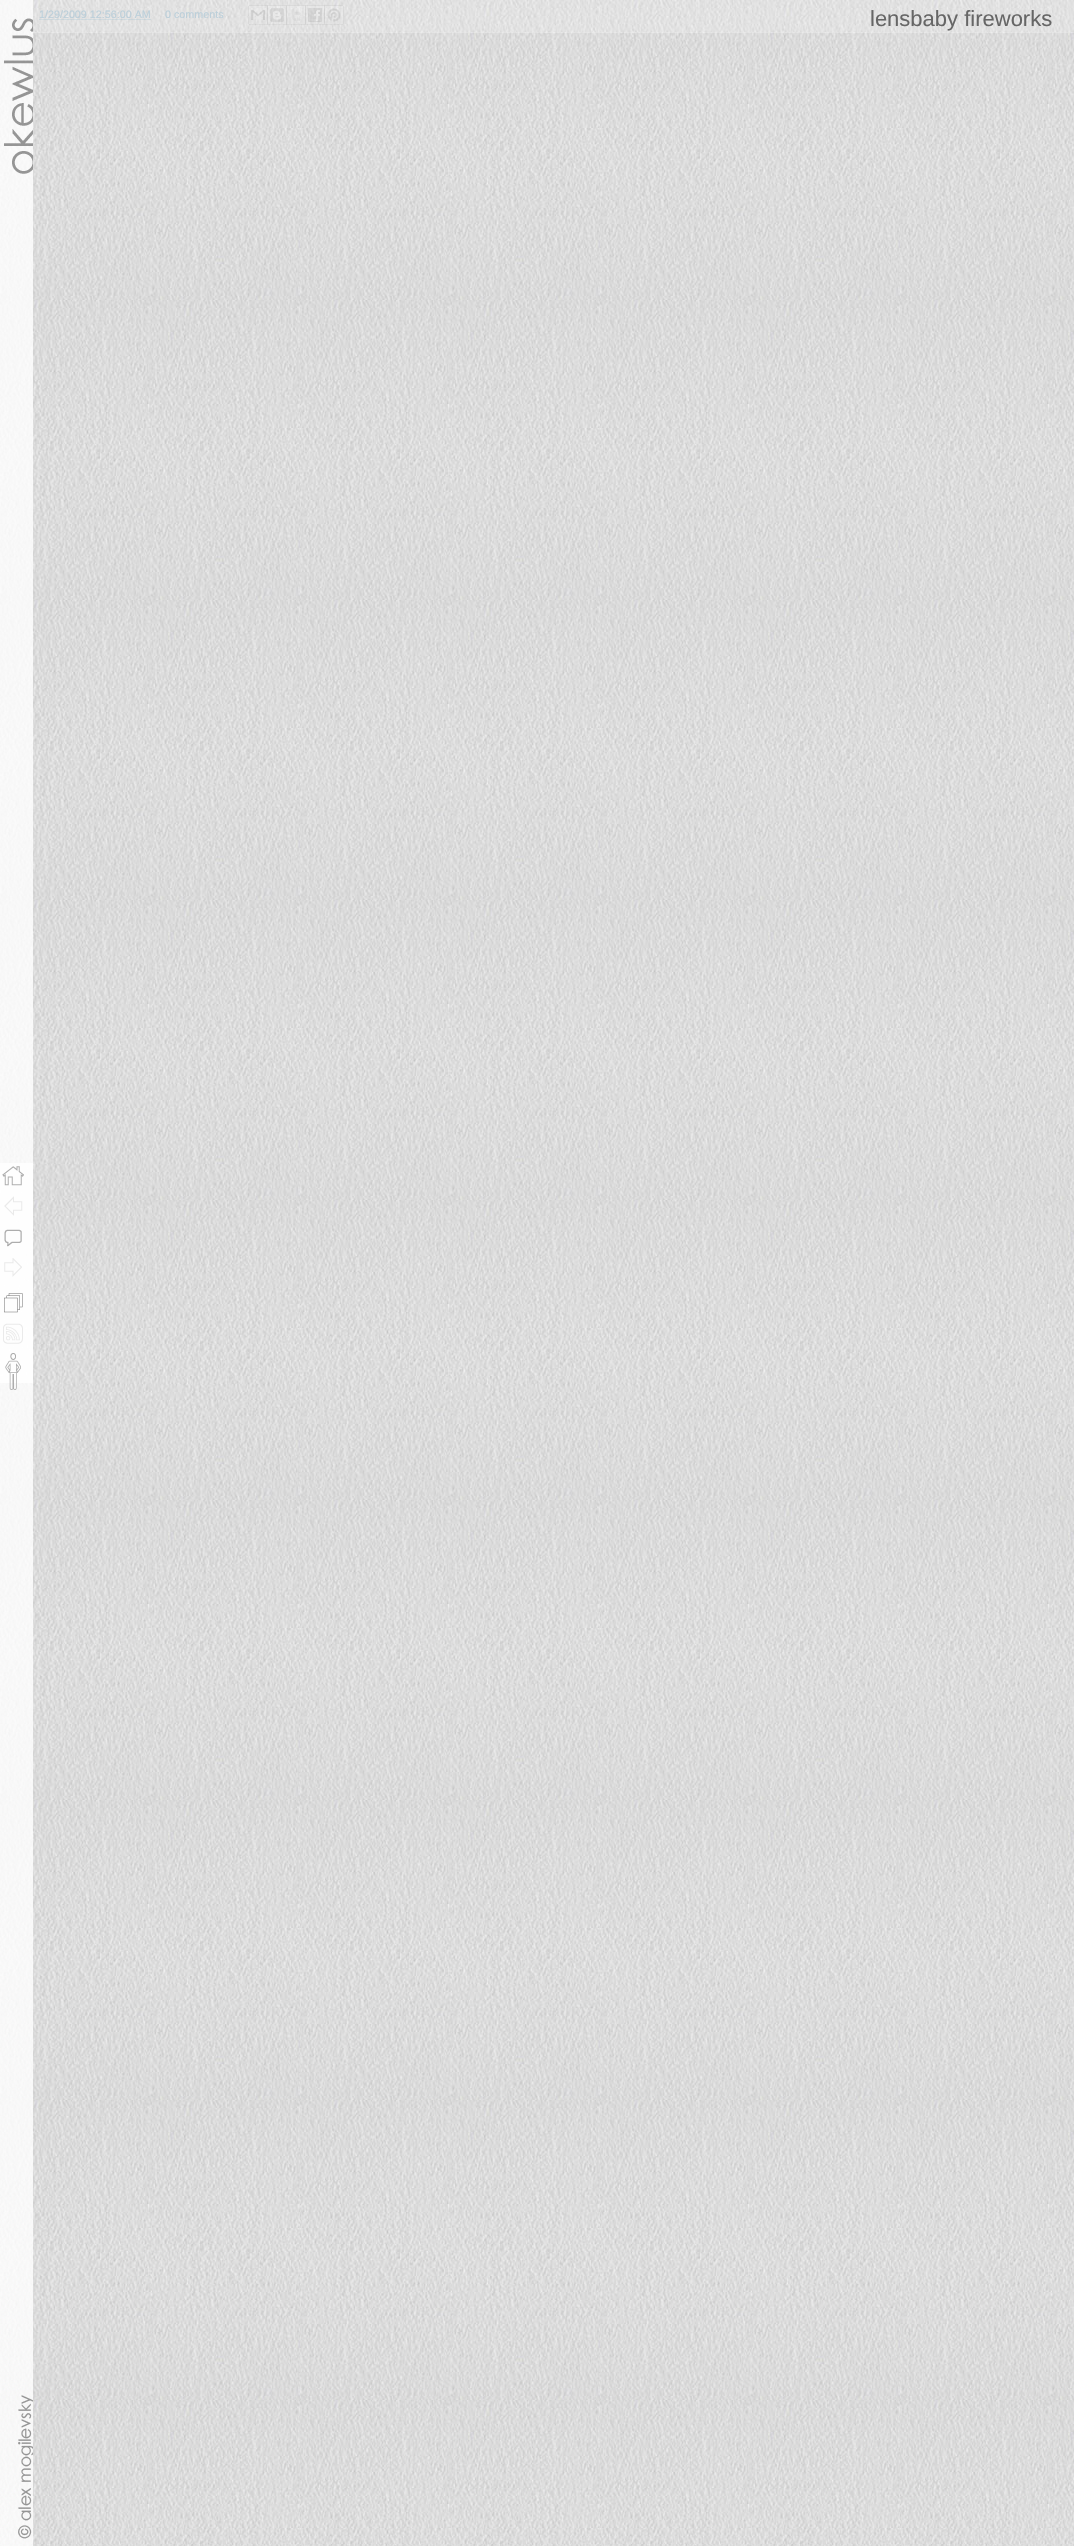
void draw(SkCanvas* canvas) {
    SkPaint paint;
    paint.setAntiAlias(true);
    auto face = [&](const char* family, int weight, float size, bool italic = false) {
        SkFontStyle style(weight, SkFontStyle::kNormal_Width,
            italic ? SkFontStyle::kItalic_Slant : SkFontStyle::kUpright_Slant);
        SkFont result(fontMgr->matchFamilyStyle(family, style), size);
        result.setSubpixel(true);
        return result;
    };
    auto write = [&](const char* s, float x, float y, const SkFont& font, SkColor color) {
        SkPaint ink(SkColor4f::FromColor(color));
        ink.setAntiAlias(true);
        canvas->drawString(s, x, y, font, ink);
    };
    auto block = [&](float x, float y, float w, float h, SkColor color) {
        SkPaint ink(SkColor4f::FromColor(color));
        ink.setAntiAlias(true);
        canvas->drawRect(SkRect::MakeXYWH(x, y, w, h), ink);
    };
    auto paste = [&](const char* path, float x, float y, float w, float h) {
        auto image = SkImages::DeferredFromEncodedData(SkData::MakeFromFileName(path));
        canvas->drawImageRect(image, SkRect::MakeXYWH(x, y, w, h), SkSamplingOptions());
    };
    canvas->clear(SK_ColorWHITE);
    paste("pic1.png", 0, 0, 1074, 2546);
    block(0, 0, 33, 2546, SkColorSetARGB(204, 255, 255, 255));
    paste("pic2.png", 4, 18, 29, 156);
    paste("pic3.png", 18, 2395, 15, 144);
    block(0, 1163, 33, 220, SkColorSetARGB(204, 255, 255, 255));
    paste("pic4.png", 2, 1166, 22, 20);
    paste("pic5.png", 4, 1196, 19, 20);
    paste("pic6.png", 4, 1229, 18, 18);
    paste("pic7.png", 4, 1258, 18, 19);
    paste("pic8.png", 4, 1293, 19, 20);
    paste("pic9.png", 3, 1323, 20, 21);
    paste("pic10.png", 5, 1353, 16, 37);
    block(33, 0, 1041, 33, SkColorSetARGB(51, 255, 255, 255));
    block(33, 32, 1041, 1, SkColorSetARGB(51, 238, 238, 238));
    auto kFont1 = face("Liberation Sans", 400, 10.75f);
    write("1/29/2009 12:56:00 AM", 39, 18, kFont1, SkColorSetRGB(187, 207, 218));
    paint.setStyle(SkPaint::kStroke_Style);
    paint.setStrokeWidth(1);
    paint.setColor(SkColorSetARGB(51, 34, 136, 187));
    paint.setPathEffect(SkDashPathEffect::Make({{1, 1}}, 0));
    canvas->drawPath(SkPathBuilder().moveTo(39.5f, 19.5f).lineTo(151.5f, 19.5f).detach(), paint);
    paint.setPathEffect(nullptr);
    write("0 comments", 165, 18, kFont1, SkColorSetRGB(187, 207, 218));
    paste("pic11.png", 248, 5, 20, 20);
    paste("pic12.png", 267, 5, 20, 20);
    paste("pic13.png", 286, 5, 20, 20);
    paste("pic14.png", 305, 5, 20, 20);
    paste("pic15.png", 324, 5, 20, 20);
    auto kFont2 = face("Liberation Sans", 400, 22);
    write("lensbaby fireworks", 870, 26, kFont2, SkColorSetRGB(102, 102, 102));
}
